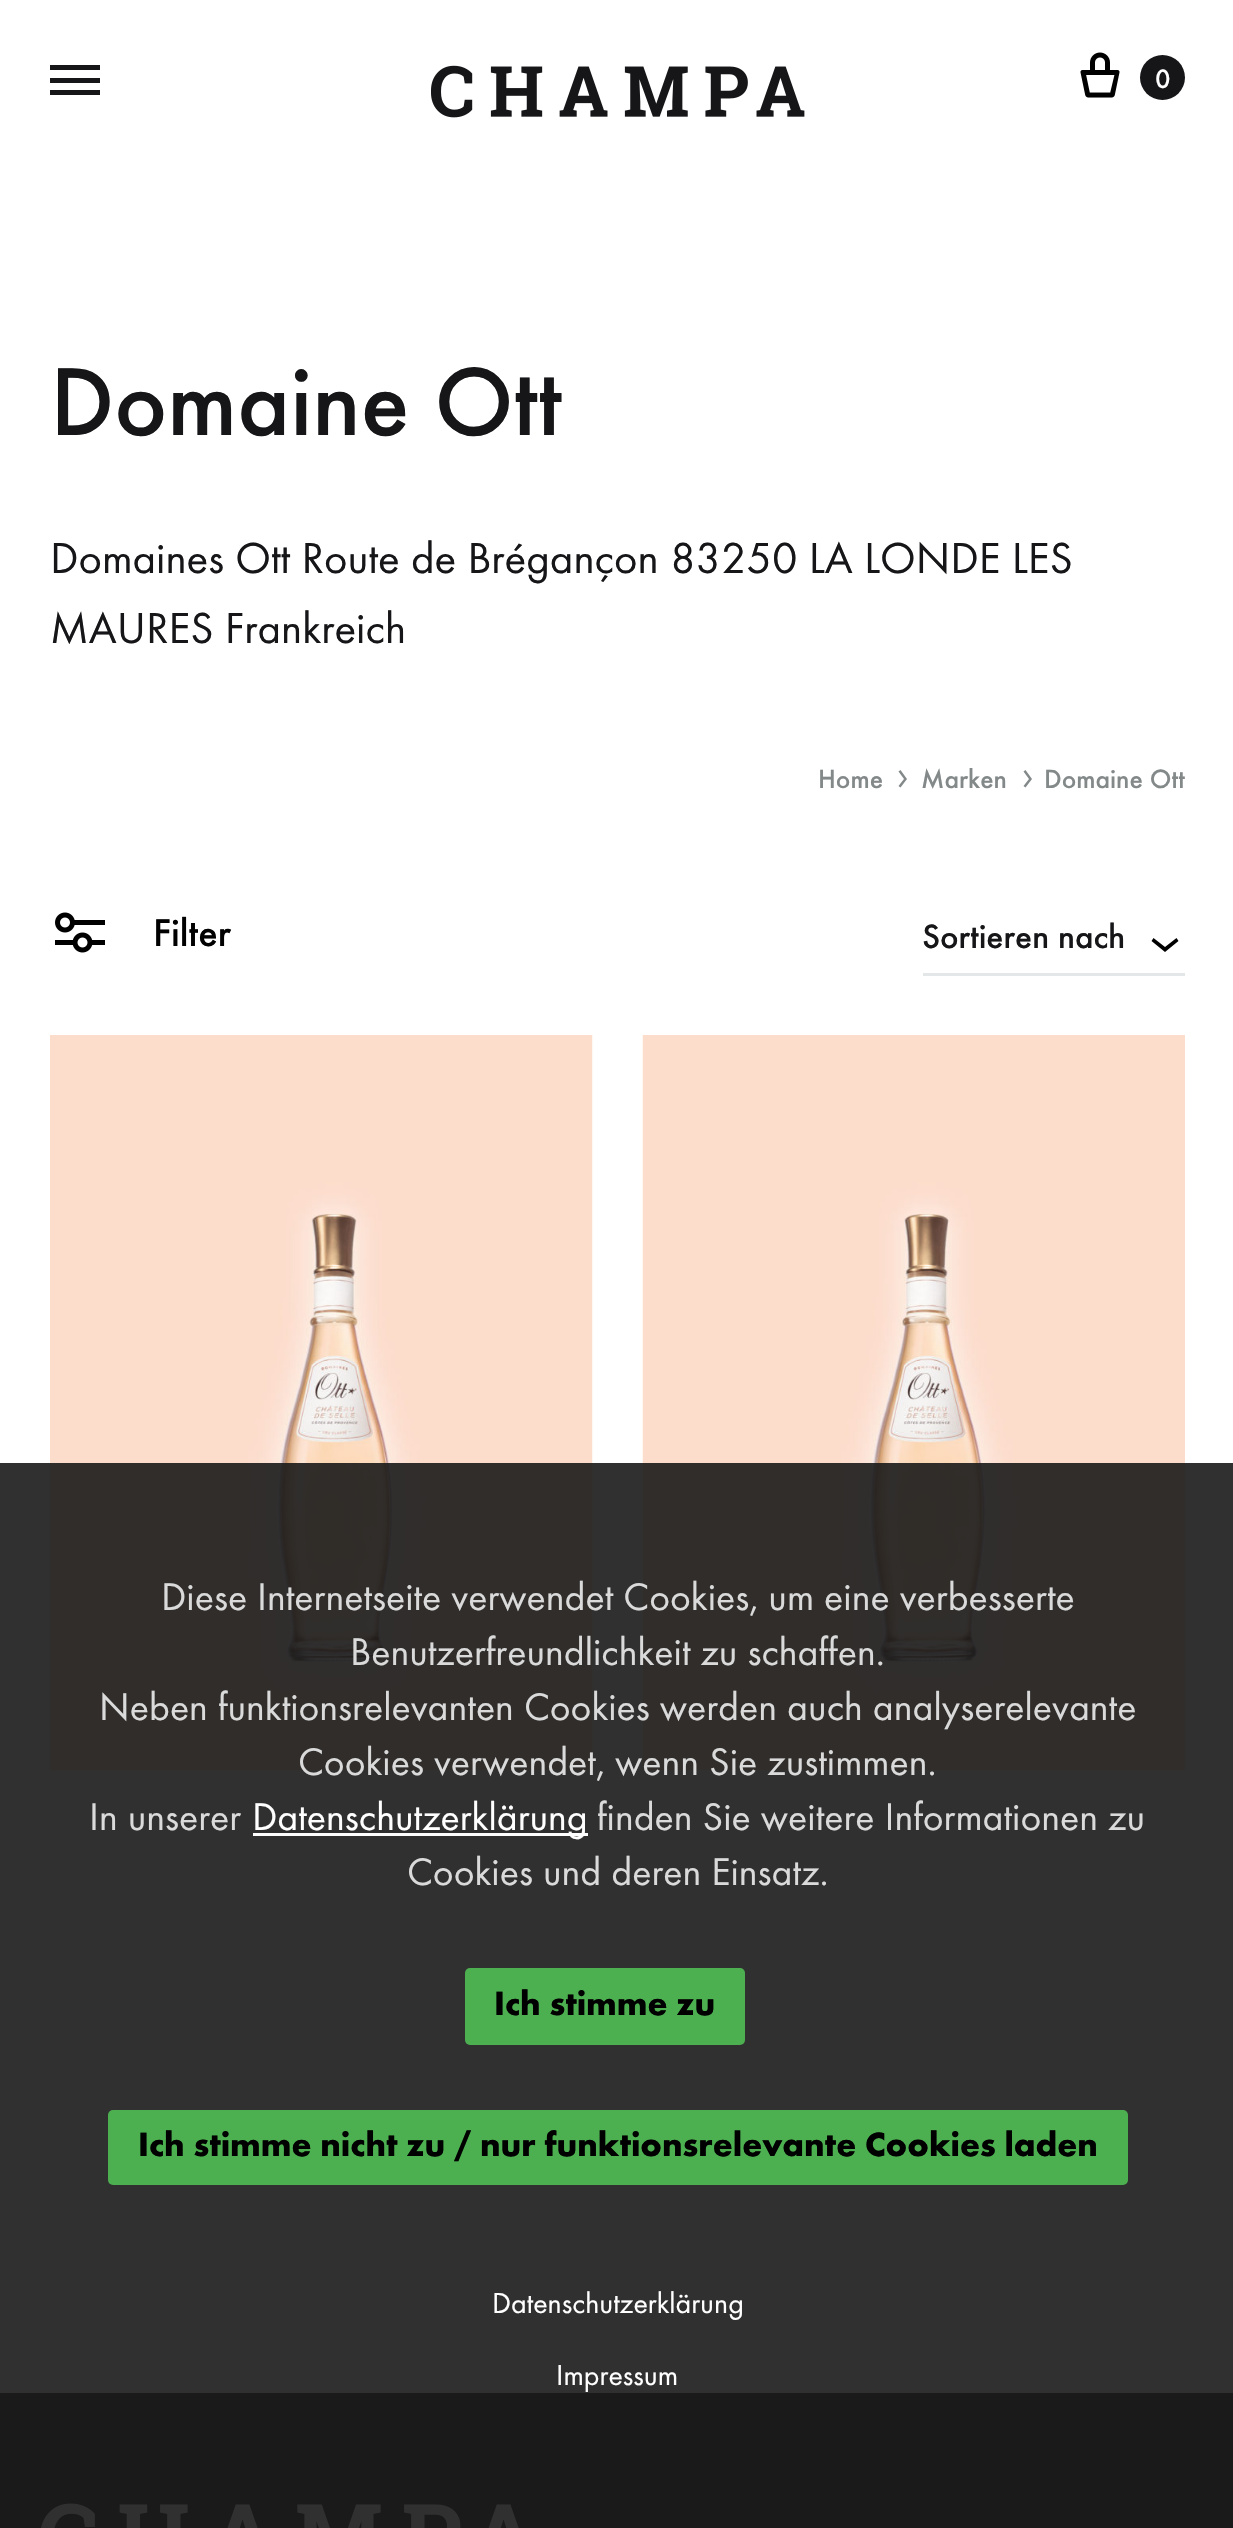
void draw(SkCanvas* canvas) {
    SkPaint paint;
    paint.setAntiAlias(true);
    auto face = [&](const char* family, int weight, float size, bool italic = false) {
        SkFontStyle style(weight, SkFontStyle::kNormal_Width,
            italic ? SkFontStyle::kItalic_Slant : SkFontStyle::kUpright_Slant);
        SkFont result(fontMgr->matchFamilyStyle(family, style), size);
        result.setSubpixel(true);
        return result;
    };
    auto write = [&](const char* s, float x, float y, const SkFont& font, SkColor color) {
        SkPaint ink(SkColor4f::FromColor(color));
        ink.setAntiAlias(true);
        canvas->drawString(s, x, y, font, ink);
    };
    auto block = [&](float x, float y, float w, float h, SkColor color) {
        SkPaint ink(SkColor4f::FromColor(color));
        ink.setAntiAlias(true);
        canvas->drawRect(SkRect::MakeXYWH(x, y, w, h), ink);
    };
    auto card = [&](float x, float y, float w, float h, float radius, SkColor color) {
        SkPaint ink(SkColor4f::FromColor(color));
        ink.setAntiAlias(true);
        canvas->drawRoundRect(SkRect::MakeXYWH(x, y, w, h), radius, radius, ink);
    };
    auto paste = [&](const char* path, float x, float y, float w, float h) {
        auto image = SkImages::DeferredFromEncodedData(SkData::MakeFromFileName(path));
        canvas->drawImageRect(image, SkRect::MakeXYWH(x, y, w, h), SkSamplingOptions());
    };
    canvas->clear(SK_ColorWHITE);
    block(50, 78, 50, 5, SkColorSetRGB(22, 22, 25));
    block(50, 65, 50, 5, SkColorSetRGB(22, 22, 25));
    block(50, 90, 50, 5, SkColorSetRGB(22, 22, 25));
    paste("pic1.png", 431, 65, 374, 53);
    paste("pic2.png", 1080, 52, 40, 46);
    paint.setColor(SkColorSetRGB(22, 22, 25));
    canvas->drawCircle(1162.5f, 77.5f, 22.5f, paint);
    auto kFont1 = face("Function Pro", 500, 27.5f);
    write("0", 1155, 88, kFont1, SK_ColorWHITE);
    auto kFont2 = face("Function Pro", 500, 100);
    write("Domaine Ott", 50, 435, kFont2, SkColorSetRGB(22, 22, 25));
    auto kFont3 = face("Function Pro", 400, 45);
    write("Domaines Ott Route de Brégançon 83250 LA LONDE LES", 50, 573, kFont3, SkColorSetRGB(22, 22, 25));
    write("MAURES Frankreich", 50, 643, kFont3, SkColorSetRGB(22, 22, 25));
    write("Home", 818, 788, kFont1, SkColorSetRGB(131, 136, 137));
    paint.setColor(SkColorSetRGB(131, 136, 137));
    canvas->drawPath(SkPathBuilder().moveTo(907, 779).lineTo(900.5f, 787.5f).lineTo(898.5f, 786).lineTo(904, 779).lineTo(898.5f, 771.5f).lineTo(900.5f, 770).close().detach(), paint);
    write("Marken", 921, 788, kFont1, SkColorSetRGB(131, 136, 137));
    canvas->drawPath(SkPathBuilder().moveTo(1032, 779).lineTo(1025.5f, 787.5f).lineTo(1023.5f, 786).lineTo(1029, 779).lineTo(1023.5f, 771.5f).lineTo(1025.5f, 770).close().detach(), paint);
    write("Domaine Ott", 1044, 788, kFont1, SkColorSetRGB(131, 136, 137));
    paste("pic3.png", 55, 912, 50, 41);
    auto kFont4 = face("Function Pro", 500, 40);
    write("Filter", 153, 946, kFont4, SK_ColorBLACK);
    block(923, 973, 262, 3, SkColorSetRGB(227, 231, 232));
    auto kFont5 = face("Function Pro", 500, 35);
    write("Sortieren nach", 922, 948, kFont5, SkColorSetRGB(22, 22, 25));
    paint.setColor(SK_ColorBLACK);
    canvas->drawPath(SkPathBuilder().moveTo(1165, 952).lineTo(1151.5f, 941).lineTo(1153.5f, 938).lineTo(1165, 947).lineTo(1176.5f, 938).lineTo(1178.5f, 941).close().detach(), paint);
    paste("pic4.png", 50, 1035, 543, 735);
    paste("pic5.png", 642, 1035, 543, 735);
    block(0, 2393, 1233, 135, SkColorSetRGB(22, 22, 25));
    paste("pic6.png", 41, 2503, 478, 25);
    block(0, 1463, 1233, 1065, SkColorSetARGB(230, 25, 25, 25));
    auto kFont6 = face("Function Pro", 400, 40);
    write("Diese Internetseite verwendet Cookies, um eine verbesserte", 161, 1610, kFont6, SkColorSetRGB(218, 218, 218));
    write("Benutzerfreundlichkeit zu schaffen.", 350, 1665, kFont6, SkColorSetRGB(218, 218, 218));
    write("Neben funktionsrelevanten Cookies werden auch analyserelevante", 99, 1720, kFont6, SkColorSetRGB(218, 218, 218));
    write("Cookies verwendet, wenn Sie zustimmen.", 298, 1775, kFont6, SkColorSetRGB(218, 218, 218));
    write("In unserer", 89, 1830, kFont6, SkColorSetRGB(218, 218, 218));
    block(253, 1833, 335, 3, SK_ColorWHITE);
    write("Datenschutzerklärung", 252, 1830, kFont6, SK_ColorWHITE);
    write("finden Sie weitere Informationen zu", 597, 1830, kFont6, SkColorSetRGB(218, 218, 218));
    write("Cookies und deren Einsatz.", 407, 1885, kFont6, SkColorSetRGB(218, 218, 218));
    card(465, 1968, 280, 77, 5, SkColorSetRGB(76, 175, 80));
    auto kFont7 = face("Function Pro", 700, 35);
    write("Ich stimme zu", 494, 2015, kFont7, SK_ColorBLACK);
    card(108, 2110, 1020, 75, 5, SkColorSetRGB(76, 175, 80));
    write("Ich stimme nicht zu / nur funktionsrelevante Cookies laden", 138, 2156, kFont7, SK_ColorBLACK);
    auto kFont8 = face("Function Pro", 400, 30);
    write("Datenschutzerklärung", 492, 2313, kFont8, SK_ColorWHITE);
    write("Impressum", 556, 2385, kFont8, SK_ColorWHITE);
}
